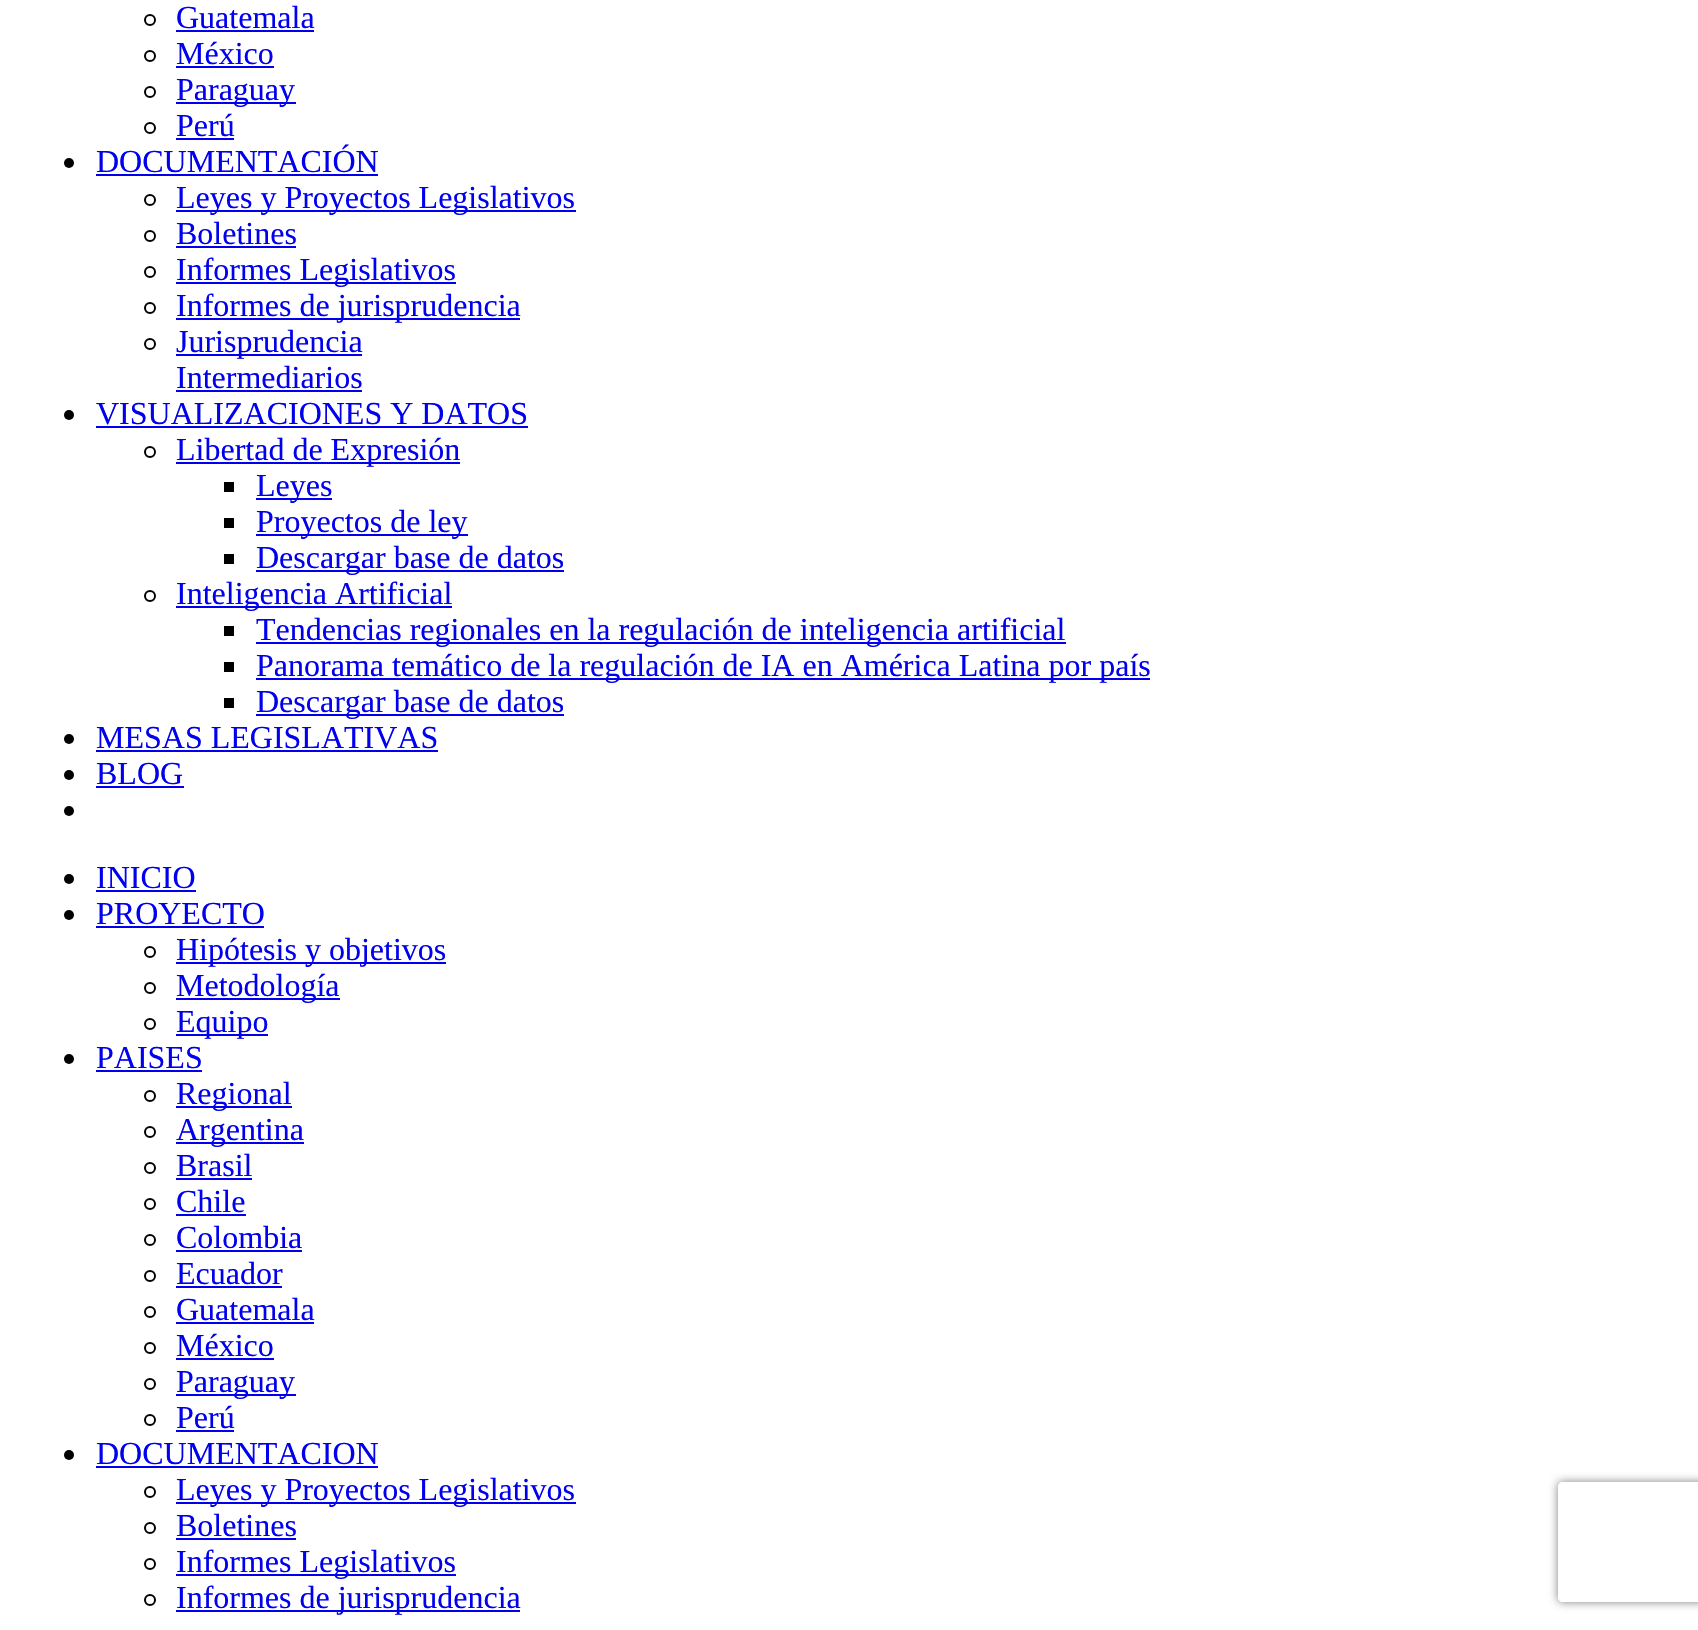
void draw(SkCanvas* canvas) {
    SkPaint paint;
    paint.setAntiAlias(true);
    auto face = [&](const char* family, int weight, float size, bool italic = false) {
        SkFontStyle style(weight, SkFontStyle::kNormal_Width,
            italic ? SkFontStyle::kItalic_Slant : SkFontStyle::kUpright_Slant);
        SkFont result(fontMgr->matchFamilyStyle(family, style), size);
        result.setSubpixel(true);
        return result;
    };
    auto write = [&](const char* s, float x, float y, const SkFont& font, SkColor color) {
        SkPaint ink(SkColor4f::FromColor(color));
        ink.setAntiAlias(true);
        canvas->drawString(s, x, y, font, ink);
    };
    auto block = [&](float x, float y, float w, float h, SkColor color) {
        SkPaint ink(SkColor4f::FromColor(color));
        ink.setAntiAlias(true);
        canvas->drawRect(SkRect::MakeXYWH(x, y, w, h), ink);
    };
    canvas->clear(SK_ColorWHITE);
    paint.setStyle(SkPaint::kStroke_Style);
    paint.setStrokeWidth(2);
    paint.setColor(SK_ColorBLACK);
    canvas->drawCircle(150, 20, 5, paint);
    auto kFont1 = face("Liberation Serif", 400, 32);
    write("Guatemala", 176, 28, kFont1, SkColorSetRGB(0, 0, 238));
    block(176, 30, 138, 2, SkColorSetRGB(0, 0, 238));
    canvas->drawCircle(150, 56, 5, paint);
    write("México", 176, 64, kFont1, SkColorSetRGB(0, 0, 238));
    block(176, 66, 98, 2, SkColorSetRGB(0, 0, 238));
    canvas->drawCircle(150, 92, 5, paint);
    block(176, 102, 120, 2, SkColorSetRGB(0, 0, 238));
    write("Paraguay", 176, 100, kFont1, SkColorSetRGB(0, 0, 238));
    canvas->drawCircle(150, 128, 5, paint);
    write("Perú", 176, 136, kFont1, SkColorSetRGB(0, 0, 238));
    block(176, 138, 58, 2, SkColorSetRGB(0, 0, 238));
    paint.setStyle(SkPaint::kFill_Style);
    canvas->drawCircle(69, 163, 5, paint);
    write("DOCUMENTACIÓN", 96, 172, kFont1, SkColorSetRGB(0, 0, 238));
    block(96, 174, 282, 2, SkColorSetRGB(0, 0, 238));
    paint.setStyle(SkPaint::kStroke_Style);
    canvas->drawCircle(150, 200, 5, paint);
    block(176, 210, 400, 2, SkColorSetRGB(0, 0, 238));
    write("Leyes y Proyectos Legislativos", 176, 208, kFont1, SkColorSetRGB(0, 0, 238));
    canvas->drawCircle(150, 236, 5, paint);
    write("Boletines", 176, 244, kFont1, SkColorSetRGB(0, 0, 238));
    block(176, 246, 120, 2, SkColorSetRGB(0, 0, 238));
    canvas->drawCircle(150, 272, 5, paint);
    block(176, 282, 280, 2, SkColorSetRGB(0, 0, 238));
    write("Informes Legislativos", 176, 280, kFont1, SkColorSetRGB(0, 0, 238));
    canvas->drawCircle(150, 308, 5, paint);
    block(176, 318, 344, 2, SkColorSetRGB(0, 0, 238));
    write("Informes de jurisprudencia", 176, 316, kFont1, SkColorSetRGB(0, 0, 238));
    canvas->drawCircle(150, 344, 5, paint);
    block(176, 354, 186, 2, SkColorSetRGB(0, 0, 238));
    write("Jurisprudencia", 176, 352, kFont1, SkColorSetRGB(0, 0, 238));
    write("Intermediarios", 176, 388, kFont1, SkColorSetRGB(0, 0, 238));
    block(176, 390, 186, 2, SkColorSetRGB(0, 0, 238));
    paint.setStyle(SkPaint::kFill_Style);
    canvas->drawCircle(69, 415, 5, paint);
    write("VISUALIZACIONES Y DATOS", 96, 424, kFont1, SkColorSetRGB(0, 0, 238));
    block(96, 426, 432, 2, SkColorSetRGB(0, 0, 238));
    paint.setStyle(SkPaint::kStroke_Style);
    canvas->drawCircle(150, 452, 5, paint);
    block(176, 462, 284, 2, SkColorSetRGB(0, 0, 238));
    write("Libertad de Expresión", 176, 460, kFont1, SkColorSetRGB(0, 0, 238));
    block(224, 482, 10, 10, SK_ColorBLACK);
    block(256, 498, 76, 2, SkColorSetRGB(0, 0, 238));
    write("Leyes", 256, 496, kFont1, SkColorSetRGB(0, 0, 238));
    block(224, 518, 10, 10, SK_ColorBLACK);
    block(256, 534, 212, 2, SkColorSetRGB(0, 0, 238));
    write("Proyectos de ley", 256, 532, kFont1, SkColorSetRGB(0, 0, 238));
    block(224, 554, 10, 10, SK_ColorBLACK);
    block(256, 570, 308, 2, SkColorSetRGB(0, 0, 238));
    write("Descargar base de datos", 256, 568, kFont1, SkColorSetRGB(0, 0, 238));
    canvas->drawCircle(150, 596, 5, paint);
    block(176, 606, 276, 2, SkColorSetRGB(0, 0, 238));
    write("Inteligencia Artificial", 176, 604, kFont1, SkColorSetRGB(0, 0, 238));
    block(224, 626, 10, 10, SK_ColorBLACK);
    block(256, 642, 810, 2, SkColorSetRGB(0, 0, 238));
    write("Tendencias regionales en la regulación de inteligencia artificial", 256, 640, kFont1, SkColorSetRGB(0, 0, 238));
    block(224, 662, 10, 10, SK_ColorBLACK);
    block(256, 678, 894, 2, SkColorSetRGB(0, 0, 238));
    write("Panorama temático de la regulación de IA en América Latina por país", 256, 676, kFont1, SkColorSetRGB(0, 0, 238));
    block(224, 698, 10, 10, SK_ColorBLACK);
    block(256, 714, 308, 2, SkColorSetRGB(0, 0, 238));
    write("Descargar base de datos", 256, 712, kFont1, SkColorSetRGB(0, 0, 238));
    paint.setStyle(SkPaint::kFill_Style);
    canvas->drawCircle(69, 739, 5, paint);
    write("MESAS LEGISLATIVAS", 96, 748, kFont1, SkColorSetRGB(0, 0, 238));
    block(96, 750, 342, 2, SkColorSetRGB(0, 0, 238));
    canvas->drawCircle(69, 775, 5, paint);
    write("BLOG", 96, 784, kFont1, SkColorSetRGB(0, 0, 238));
    block(96, 786, 88, 2, SkColorSetRGB(0, 0, 238));
    canvas->drawCircle(69, 811, 5, paint);
    canvas->drawCircle(69, 879, 5, paint);
    write("INICIO", 96, 888, kFont1, SkColorSetRGB(0, 0, 238));
    block(96, 890, 100, 2, SkColorSetRGB(0, 0, 238));
    canvas->drawCircle(69, 915, 5, paint);
    write("PROYECTO", 96, 924, kFont1, SkColorSetRGB(0, 0, 238));
    block(96, 926, 168, 2, SkColorSetRGB(0, 0, 238));
    paint.setStyle(SkPaint::kStroke_Style);
    canvas->drawCircle(150, 952, 5, paint);
    block(176, 962, 270, 2, SkColorSetRGB(0, 0, 238));
    write("Hipótesis y objetivos", 176, 960, kFont1, SkColorSetRGB(0, 0, 238));
    canvas->drawCircle(150, 988, 5, paint);
    block(176, 998, 164, 2, SkColorSetRGB(0, 0, 238));
    write("Metodología", 176, 996, kFont1, SkColorSetRGB(0, 0, 238));
    canvas->drawCircle(150, 1024, 5, paint);
    block(176, 1034, 92, 2, SkColorSetRGB(0, 0, 238));
    write("Equipo", 176, 1032, kFont1, SkColorSetRGB(0, 0, 238));
    paint.setStyle(SkPaint::kFill_Style);
    canvas->drawCircle(69, 1059, 5, paint);
    write("PAISES", 96, 1068, kFont1, SkColorSetRGB(0, 0, 238));
    block(96, 1070, 106, 2, SkColorSetRGB(0, 0, 238));
    paint.setStyle(SkPaint::kStroke_Style);
    canvas->drawCircle(150, 1096, 5, paint);
    block(176, 1106, 116, 2, SkColorSetRGB(0, 0, 238));
    write("Regional", 176, 1104, kFont1, SkColorSetRGB(0, 0, 238));
    canvas->drawCircle(150, 1132, 5, paint);
    block(176, 1142, 128, 2, SkColorSetRGB(0, 0, 238));
    write("Argentina", 176, 1140, kFont1, SkColorSetRGB(0, 0, 238));
    canvas->drawCircle(150, 1168, 5, paint);
    write("Brasil", 176, 1176, kFont1, SkColorSetRGB(0, 0, 238));
    block(176, 1178, 76, 2, SkColorSetRGB(0, 0, 238));
    canvas->drawCircle(150, 1204, 5, paint);
    write("Chile", 176, 1212, kFont1, SkColorSetRGB(0, 0, 238));
    block(176, 1214, 70, 2, SkColorSetRGB(0, 0, 238));
    canvas->drawCircle(150, 1240, 5, paint);
    write("Colombia", 176, 1248, kFont1, SkColorSetRGB(0, 0, 238));
    block(176, 1250, 126, 2, SkColorSetRGB(0, 0, 238));
    canvas->drawCircle(150, 1276, 5, paint);
    write("Ecuador", 176, 1284, kFont1, SkColorSetRGB(0, 0, 238));
    block(176, 1286, 106, 2, SkColorSetRGB(0, 0, 238));
    canvas->drawCircle(150, 1312, 5, paint);
    write("Guatemala", 176, 1320, kFont1, SkColorSetRGB(0, 0, 238));
    block(176, 1322, 138, 2, SkColorSetRGB(0, 0, 238));
    canvas->drawCircle(150, 1348, 5, paint);
    write("México", 176, 1356, kFont1, SkColorSetRGB(0, 0, 238));
    block(176, 1358, 98, 2, SkColorSetRGB(0, 0, 238));
    canvas->drawCircle(150, 1384, 5, paint);
    block(176, 1394, 120, 2, SkColorSetRGB(0, 0, 238));
    write("Paraguay", 176, 1392, kFont1, SkColorSetRGB(0, 0, 238));
    canvas->drawCircle(150, 1420, 5, paint);
    write("Perú", 176, 1428, kFont1, SkColorSetRGB(0, 0, 238));
    block(176, 1430, 58, 2, SkColorSetRGB(0, 0, 238));
    paint.setStyle(SkPaint::kFill_Style);
    canvas->drawCircle(69, 1455, 5, paint);
    write("DOCUMENTACION", 96, 1464, kFont1, SkColorSetRGB(0, 0, 238));
    block(96, 1466, 282, 2, SkColorSetRGB(0, 0, 238));
    paint.setStyle(SkPaint::kStroke_Style);
    canvas->drawCircle(150, 1492, 5, paint);
    block(176, 1502, 400, 2, SkColorSetRGB(0, 0, 238));
    write("Leyes y Proyectos Legislativos", 176, 1500, kFont1, SkColorSetRGB(0, 0, 238));
    canvas->drawCircle(150, 1528, 5, paint);
    write("Boletines", 176, 1536, kFont1, SkColorSetRGB(0, 0, 238));
    block(176, 1538, 120, 2, SkColorSetRGB(0, 0, 238));
    canvas->drawCircle(150, 1564, 5, paint);
    block(176, 1574, 280, 2, SkColorSetRGB(0, 0, 238));
    write("Informes Legislativos", 176, 1572, kFont1, SkColorSetRGB(0, 0, 238));
    canvas->drawCircle(150, 1600, 5, paint);
    block(176, 1610, 344, 2, SkColorSetRGB(0, 0, 238));
    write("Informes de jurisprudencia", 176, 1608, kFont1, SkColorSetRGB(0, 0, 238));
    canvas->save();
    canvas->clipPath(SkPathBuilder(SkPathFillType::kEvenOdd).moveTo(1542, 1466).lineTo(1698, 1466).lineTo(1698, 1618).lineTo(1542, 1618).close().moveTo(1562, 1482).lineTo(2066, 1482).cubicTo(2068, 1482, 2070, 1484, 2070, 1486).lineTo(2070, 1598).cubicTo(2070, 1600, 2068, 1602, 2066, 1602).lineTo(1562, 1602).cubicTo(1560, 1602, 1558, 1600, 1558, 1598).lineTo(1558, 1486).cubicTo(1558, 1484, 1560, 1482, 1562, 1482).close().detach(), true);
    paint.setStyle(SkPaint::kFill_Style);
    paint.setColor(SkColorSetRGB(128, 128, 128));
    paint.setMaskFilter(SkMaskFilter::MakeBlur(kNormal_SkBlurStyle, 5));
    canvas->drawRoundRect(SkRect::MakeXYWH(1558, 1482, 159, 120), 4, 4, paint);
    paint.setMaskFilter(nullptr);
    canvas->restore();
}
